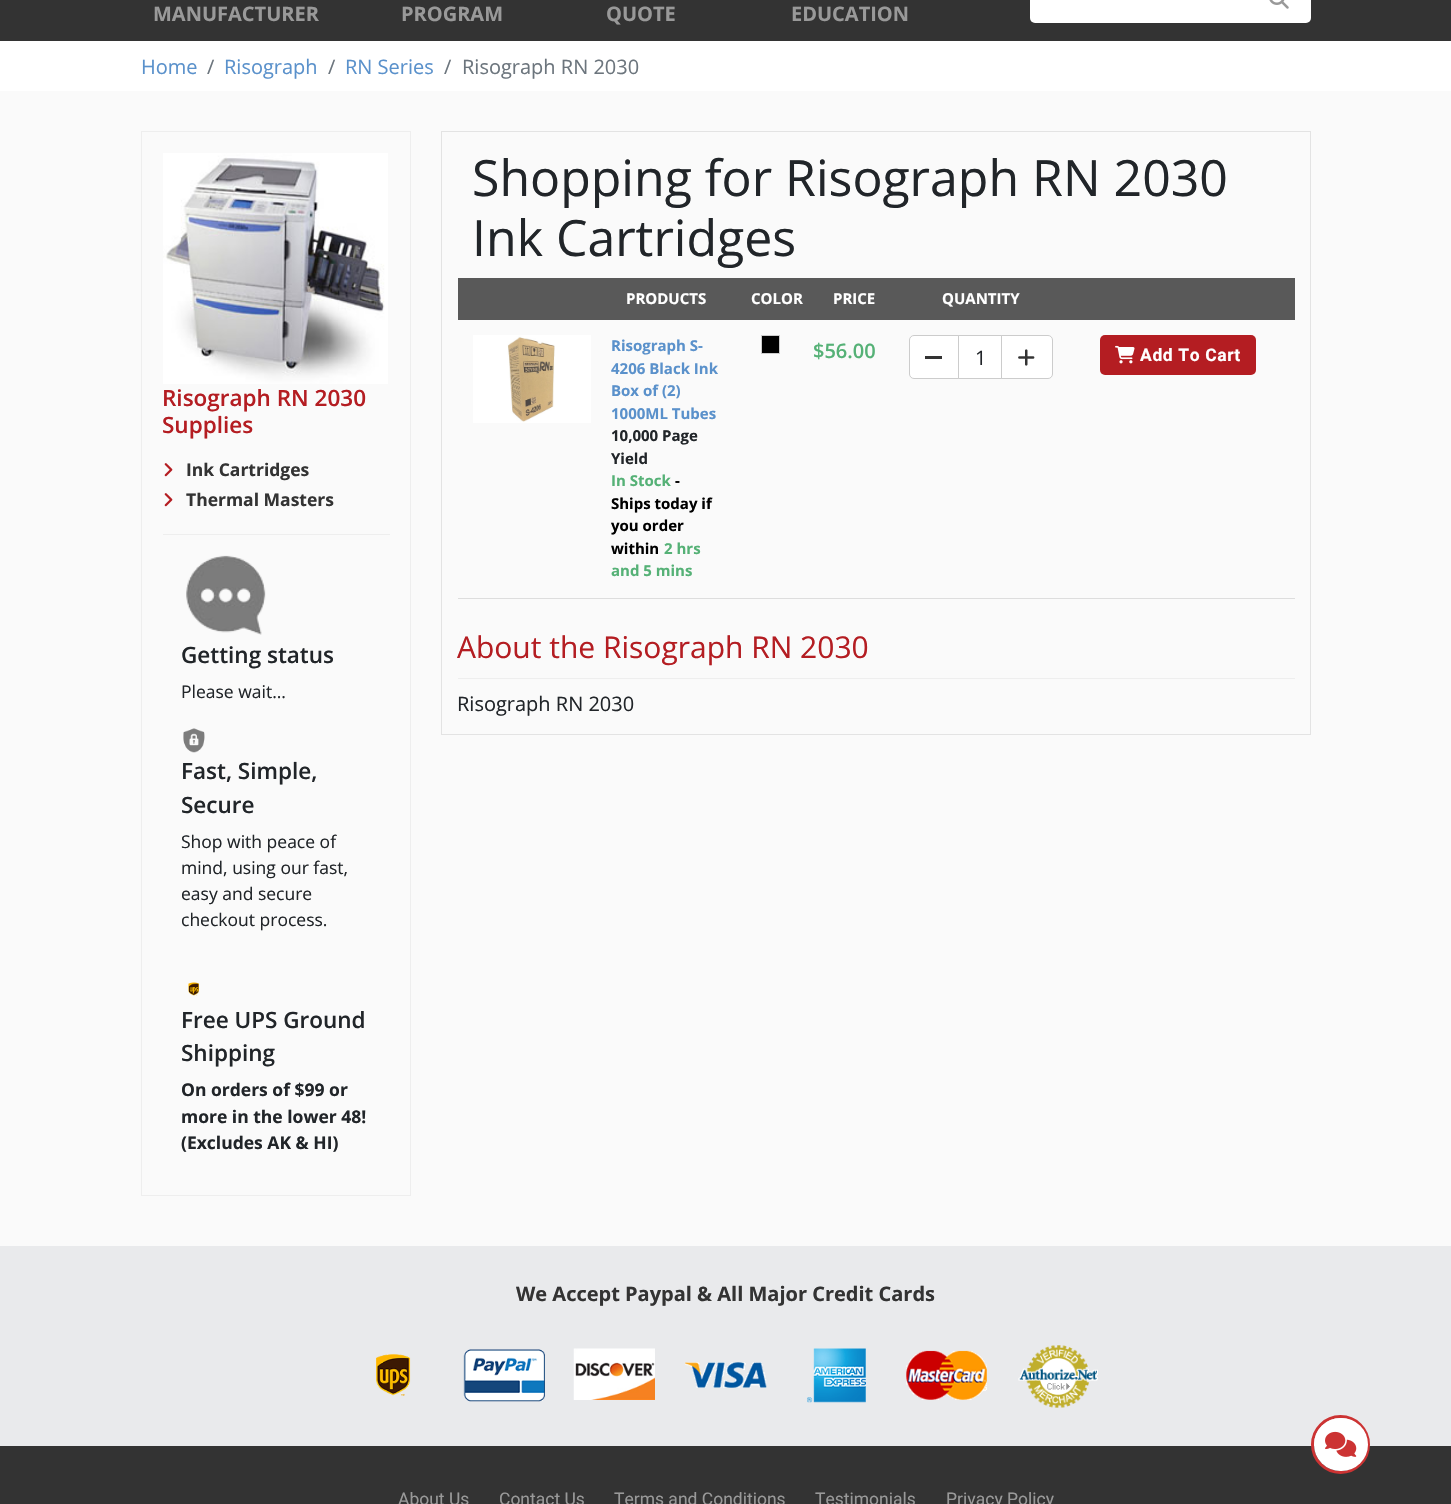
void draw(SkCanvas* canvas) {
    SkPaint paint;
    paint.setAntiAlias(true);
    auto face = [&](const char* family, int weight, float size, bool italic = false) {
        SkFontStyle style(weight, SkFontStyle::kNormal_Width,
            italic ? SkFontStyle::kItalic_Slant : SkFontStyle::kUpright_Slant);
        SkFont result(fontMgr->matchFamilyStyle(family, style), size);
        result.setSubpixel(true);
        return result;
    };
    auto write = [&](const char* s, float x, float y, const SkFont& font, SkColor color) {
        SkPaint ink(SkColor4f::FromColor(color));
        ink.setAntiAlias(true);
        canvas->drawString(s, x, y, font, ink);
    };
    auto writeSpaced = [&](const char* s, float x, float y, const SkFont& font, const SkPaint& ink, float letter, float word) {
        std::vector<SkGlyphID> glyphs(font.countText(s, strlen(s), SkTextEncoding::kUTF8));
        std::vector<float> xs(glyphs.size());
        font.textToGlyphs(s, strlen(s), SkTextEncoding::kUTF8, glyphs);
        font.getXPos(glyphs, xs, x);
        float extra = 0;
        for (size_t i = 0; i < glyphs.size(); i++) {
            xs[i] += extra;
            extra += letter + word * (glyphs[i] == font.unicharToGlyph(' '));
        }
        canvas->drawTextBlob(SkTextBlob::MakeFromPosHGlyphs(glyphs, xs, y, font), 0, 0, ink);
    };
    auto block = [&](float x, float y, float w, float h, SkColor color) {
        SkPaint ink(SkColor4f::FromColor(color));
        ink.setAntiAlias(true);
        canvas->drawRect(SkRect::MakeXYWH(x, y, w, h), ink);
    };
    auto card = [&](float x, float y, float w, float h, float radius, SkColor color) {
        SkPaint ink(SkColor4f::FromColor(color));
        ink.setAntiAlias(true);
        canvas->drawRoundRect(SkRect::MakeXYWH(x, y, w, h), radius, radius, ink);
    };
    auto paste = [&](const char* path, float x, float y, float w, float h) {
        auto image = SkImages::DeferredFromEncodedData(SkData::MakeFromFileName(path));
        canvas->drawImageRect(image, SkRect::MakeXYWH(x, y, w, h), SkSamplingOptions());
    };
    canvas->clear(SK_ColorWHITE);
    block(0, 0, 1451, 41, SkColorSetRGB(51, 51, 51));
    auto kFont1 = face("Open Sans", 700, 20);
    write("MANUFACTURER", 153, 21, kFont1, SkColorSetRGB(153, 153, 153));
    write("PROGRAM", 401, 21, kFont1, SkColorSetRGB(153, 153, 153));
    write("QUOTE", 606, 21, kFont1, SkColorSetRGB(153, 153, 153));
    write("EDUCATION", 791, 21, kFont1, SkColorSetRGB(153, 153, 153));
    card(1030, -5, 281, 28, 5, SK_ColorWHITE);
    paste("pic1.png", 1269, 0, 20, 9);
    auto kFont2 = face("Open Sans", 400, 20);
    write("Home", 141, 74, kFont2, SkColorSetRGB(90, 145, 203));
    write("/", 207, 74, kFont2, SkColorSetRGB(108, 117, 125));
    write("Risograph", 224, 74, kFont2, SkColorSetRGB(90, 145, 203));
    write("/", 328, 74, kFont2, SkColorSetRGB(108, 117, 125));
    write("RN Series", 345, 74, kFont2, SkColorSetRGB(90, 145, 203));
    write("/", 444, 74, kFont2, SkColorSetRGB(108, 117, 125));
    write("Risograph RN 2030", 462, 74, kFont2, SkColorSetRGB(108, 117, 125));
    block(0, 91, 1451, 1155, SkColorSetRGB(250, 250, 250));
    paint.setStyle(SkPaint::kStroke_Style);
    paint.setStrokeWidth(1);
    paint.setColor(SkColorSetRGB(238, 238, 238));
    canvas->drawRect(SkRect::MakeXYWH(141.5f, 131.5f, 269, 1064), paint);
    block(163, 534, 227, 1, SkColorSetRGB(238, 238, 238));
    paste("pic2.png", 163, 153, 225, 231);
    auto kFont3 = face("Open Sans", 600, 22.5f);
    write("Risograph RN 2030", 162, 406, kFont3, SkColorSetRGB(180, 29, 34));
    write("Supplies", 162, 433, kFont3, SkColorSetRGB(180, 29, 34));
    paste("pic3.png", 164, 463, 9, 14);
    auto kFont4 = face("Open Sans", 700, 17.5f);
    write("Ink Cartridges", 186, 476, kFont4, SkColorSetRGB(51, 51, 51));
    paste("pic3.png", 164, 493, 9, 14);
    write("Thermal Masters", 186, 506, kFont4, SkColorSetRGB(51, 51, 51));
    paste("pic4.png", 186, 555, 80, 80);
    write("Getting status", 181, 663, kFont3, SkColorSetRGB(33, 37, 41));
    auto kFont5 = face("Open Sans", 400, 17.5f);
    write("Please wait...", 181, 698, kFont5, SkColorSetRGB(33, 37, 41));
    paste("pic5.png", 183, 728, 22, 25);
    write("Fast, Simple,", 181, 779, kFont3, SkColorSetRGB(33, 37, 41));
    write("Secure", 181, 813, kFont3, SkColorSetRGB(33, 37, 41));
    write("Shop with peace of", 181, 848, kFont5, SkColorSetRGB(33, 37, 41));
    write("mind, using our fast,", 181, 874, kFont5, SkColorSetRGB(33, 37, 41));
    write("easy and secure", 181, 900, kFont5, SkColorSetRGB(33, 37, 41));
    write("checkout process.", 181, 926, kFont5, SkColorSetRGB(33, 37, 41));
    paste("pic6.png", 188, 982, 11, 14);
    write("Free UPS Ground", 181, 1028, kFont3, SkColorSetRGB(33, 37, 41));
    write("Shipping", 181, 1061, kFont3, SkColorSetRGB(33, 37, 41));
    write("On orders of $99 or", 181, 1096, kFont4, SkColorSetRGB(33, 37, 41));
    write("more in the lower 48!", 181, 1123, kFont4, SkColorSetRGB(33, 37, 41));
    write("(Excludes AK & HI)", 181, 1149, kFont4, SkColorSetRGB(33, 37, 41));
    paint.setColor(SkColorSetRGB(227, 227, 227));
    canvas->drawRect(SkRect::MakeXYWH(441.5f, 131.5f, 869, 603), paint);
    auto kFont6 = face("Open Sans", 400, 50);
    write("Shopping for Risograph RN 2030", 472, 196, kFont6, SkColorSetRGB(33, 37, 41));
    write("Ink Cartridges", 472, 256, kFont6, SkColorSetRGB(33, 37, 41));
    block(458, 278, 837, 42, SkColorSetRGB(89, 89, 89));
    auto kFont7 = face("Open Sans", 700, 15);
    write("PRODUCTS", 626, 304, kFont7, SK_ColorWHITE);
    write("COLOR", 751, 304, kFont7, SK_ColorWHITE);
    write("PRICE", 833, 304, kFont7, SK_ColorWHITE);
    write("QUANTITY", 942, 304, kFont7, SK_ColorWHITE);
    block(458, 598, 837, 1, SkColorSetRGB(221, 221, 221));
    paste("pic7.png", 473, 335, 118, 88);
    write("Risograph S-", 611, 351, kFont7, SkColorSetRGB(90, 145, 203));
    write("4206 Black Ink", 611, 374, kFont7, SkColorSetRGB(90, 145, 203));
    write("Box of (2)", 611, 396, kFont7, SkColorSetRGB(90, 145, 203));
    write("1000ML Tubes", 611, 419, kFont7, SkColorSetRGB(90, 145, 203));
    write("10,000 Page", 611, 441, kFont7, SkColorSetRGB(33, 37, 41));
    write("Yield", 611, 464, kFont7, SkColorSetRGB(33, 37, 41));
    write("In Stock", 611, 486, kFont7, SkColorSetRGB(85, 177, 118));
    write("-", 675, 486, kFont7, SK_ColorBLACK);
    write("Ships today if", 611, 509, kFont7, SK_ColorBLACK);
    write("you order", 611, 531, kFont7, SK_ColorBLACK);
    write("within", 611, 554, kFont7, SK_ColorBLACK);
    write("2 hrs", 664, 554, kFont7, SkColorSetRGB(85, 177, 118));
    write("and 5 mins", 611, 576, kFont7, SkColorSetRGB(85, 177, 118));
    paint.setStyle(SkPaint::kFill_Style);
    paint.setColor(SK_ColorBLACK);
    canvas->drawRect(SkRect::MakeXYWH(761.5f, 335.5f, 18, 18), paint);
    paint.setStyle(SkPaint::kStroke_Style);
    paint.setColor(SkColorSetRGB(204, 204, 204));
    canvas->drawRect(SkRect::MakeXYWH(761.5f, 335.5f, 18, 18), paint);
    auto kFont8 = face("Open Sans", 600, 20);
    write("$56.00", 813, 358, kFont8, SkColorSetRGB(85, 177, 118));
    block(958, 335, 45, 1, SkColorSetRGB(204, 204, 204));
    block(958, 378, 45, 1, SkColorSetRGB(204, 204, 204));
    paint.setStyle(SkPaint::kFill_Style);
    paint.setColor(SK_ColorWHITE);
    canvas->drawPath(SkPathBuilder().moveTo(914, 335.5f).lineTo(958.5f, 335.5f).lineTo(958.5f, 378.5f).lineTo(914, 378.5f).cubicTo(911.5f, 378.5f, 909.5f, 376.5f, 909.5f, 374).lineTo(909.5f, 340).cubicTo(909.5f, 337.5f, 911.5f, 335.5f, 914, 335.5f).close().detach(), paint);
    paint.setStyle(SkPaint::kStroke_Style);
    paint.setColor(SkColorSetRGB(204, 204, 204));
    canvas->drawPath(SkPathBuilder().moveTo(914, 335.5f).lineTo(958.5f, 335.5f).lineTo(958.5f, 378.5f).lineTo(914, 378.5f).cubicTo(911.5f, 378.5f, 909.5f, 376.5f, 909.5f, 374).lineTo(909.5f, 340).cubicTo(909.5f, 337.5f, 911.5f, 335.5f, 914, 335.5f).close().detach(), paint);
    block(925, 356, 17, 3, SkColorSetRGB(51, 51, 51));
    block(959, 336, 42, 42, SK_ColorWHITE);
    write("1", 975, 365, kFont2, SkColorSetRGB(33, 37, 41));
    paint.setStyle(SkPaint::kFill_Style);
    paint.setColor(SK_ColorWHITE);
    canvas->drawPath(SkPathBuilder().moveTo(1001.5f, 335.5f).lineTo(1048, 335.5f).cubicTo(1050.5f, 335.5f, 1052.5f, 337.5f, 1052.5f, 340).lineTo(1052.5f, 374).cubicTo(1052.5f, 376.5f, 1050.5f, 378.5f, 1048, 378.5f).lineTo(1001.5f, 378.5f).close().detach(), paint);
    paint.setStyle(SkPaint::kStroke_Style);
    paint.setColor(SkColorSetRGB(204, 204, 204));
    canvas->drawPath(SkPathBuilder().moveTo(1001.5f, 335.5f).lineTo(1048, 335.5f).cubicTo(1050.5f, 335.5f, 1052.5f, 337.5f, 1052.5f, 340).lineTo(1052.5f, 374).cubicTo(1052.5f, 376.5f, 1050.5f, 378.5f, 1048, 378.5f).lineTo(1001.5f, 378.5f).close().detach(), paint);
    paste("pic8.png", 1018, 349, 17, 17);
    card(1100, 335, 156, 40, 5, SkColorSetRGB(180, 29, 34));
    paste("pic9.png", 1115, 345, 20, 19);
    auto kFont9 = face("Roboto", 700, 17.5f);
    paint.setStyle(SkPaint::kFill_Style);
    paint.setColor(SK_ColorWHITE);
    writeSpaced("Add To Cart", 1140, 361, kFont9, paint, 0.6f, 0);
    block(458, 678, 837, 1, SkColorSetRGB(238, 238, 238));
    auto kFont10 = face("Open Sans", 400, 30);
    write("About the Risograph RN 2030", 457, 658, kFont10, SkColorSetRGB(180, 29, 34));
    write("Risograph RN 2030", 457, 711, kFont2, SkColorSetRGB(33, 37, 41));
    block(0, 1446, 1451, 58, SkColorSetRGB(51, 51, 51));
    block(0, 1246, 1451, 200, SkColorSetRGB(233, 234, 236));
    write("We Accept Paypal & All Major Credit Cards", 516, 1301, kFont1, SkColorSetRGB(51, 51, 51));
    paste("pic10.png", 376, 1354, 35, 42);
    paste("pic11.png", 463, 1349, 82, 53);
    paste("pic12.png", 573, 1348, 82, 52);
    paste("pic13.png", 685, 1362, 82, 26);
    paste("pic14.png", 807, 1348, 59, 55);
    paste("pic15.png", 906, 1350, 81, 50);
    paste("pic16.png", 1018, 1345, 80, 63);
    auto kFont11 = face("Roboto", 400, 17.5f);
    write("About Us", 398, 1505, kFont11, SkColorSetRGB(153, 153, 153));
    write("Contact Us", 499, 1505, kFont11, SkColorSetRGB(153, 153, 153));
    write("Terms and Conditions", 614, 1505, kFont11, SkColorSetRGB(153, 153, 153));
    write("Testimonials", 815, 1505, kFont11, SkColorSetRGB(153, 153, 153));
    write("Privacy Policy", 946, 1505, kFont11, SkColorSetRGB(153, 153, 153));
    paint.setStyle(SkPaint::kStroke_Style);
    paint.setStrokeWidth(3);
    paint.setColor(SkColorSetRGB(204, 51, 51));
    canvas->drawCircle(1340.5f, 1444.5f, 28, paint);
    card(1314, 1418, 54, 53, 26.5f, SK_ColorWHITE);
    paste("pic17.png", 1325, 1431, 32, 26);
}
